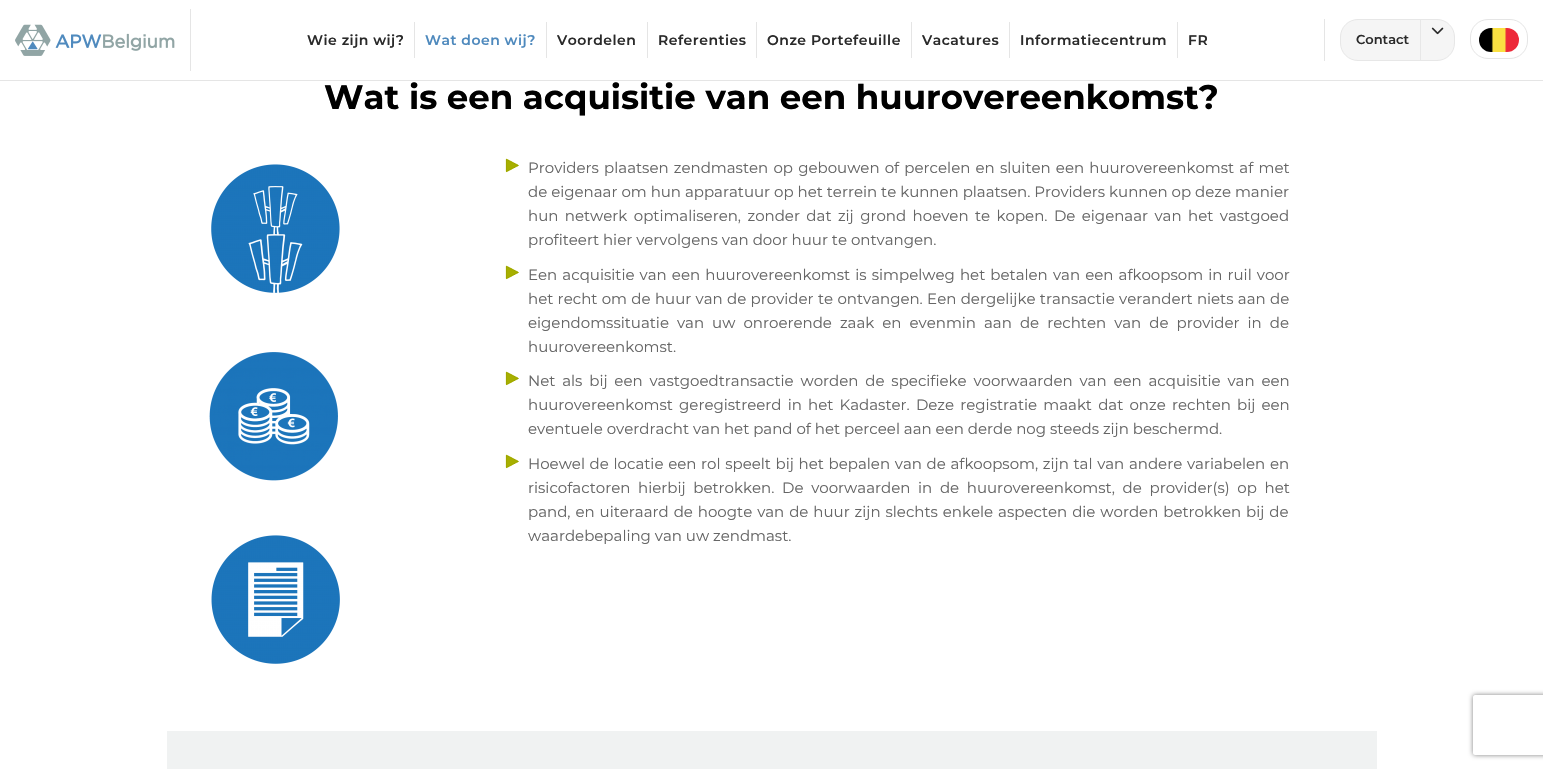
void draw(SkCanvas* canvas) {
    SkPaint paint;
    paint.setAntiAlias(true);
    auto face = [&](const char* family, int weight, float size, bool italic = false) {
        SkFontStyle style(weight, SkFontStyle::kNormal_Width,
            italic ? SkFontStyle::kItalic_Slant : SkFontStyle::kUpright_Slant);
        SkFont result(fontMgr->matchFamilyStyle(family, style), size);
        result.setSubpixel(true);
        return result;
    };
    auto write = [&](const char* s, float x, float y, const SkFont& font, SkColor color) {
        SkPaint ink(SkColor4f::FromColor(color));
        ink.setAntiAlias(true);
        canvas->drawString(s, x, y, font, ink);
    };
    auto writeSpaced = [&](const char* s, float x, float y, const SkFont& font, const SkPaint& ink, float letter, float word) {
        std::vector<SkGlyphID> glyphs(font.countText(s, strlen(s), SkTextEncoding::kUTF8));
        std::vector<float> xs(glyphs.size());
        font.textToGlyphs(s, strlen(s), SkTextEncoding::kUTF8, glyphs);
        font.getXPos(glyphs, xs, x);
        float extra = 0;
        for (size_t i = 0; i < glyphs.size(); i++) {
            xs[i] += extra;
            extra += letter + word * (glyphs[i] == font.unicharToGlyph(' '));
        }
        canvas->drawTextBlob(SkTextBlob::MakeFromPosHGlyphs(glyphs, xs, y, font), 0, 0, ink);
    };
    auto block = [&](float x, float y, float w, float h, SkColor color) {
        SkPaint ink(SkColor4f::FromColor(color));
        ink.setAntiAlias(true);
        canvas->drawRect(SkRect::MakeXYWH(x, y, w, h), ink);
    };
    auto paste = [&](const char* path, float x, float y, float w, float h) {
        auto image = SkImages::DeferredFromEncodedData(SkData::MakeFromFileName(path));
        canvas->drawImageRect(image, SkRect::MakeXYWH(x, y, w, h), SkSamplingOptions());
    };
    canvas->clear(SK_ColorWHITE);
    block(0, 80, 1543, 1, SkColorSetRGB(229, 229, 229));
    block(190, 9, 1, 62, SkColorSetRGB(229, 229, 229));
    paste("pic1.png", 15, 24, 160, 32);
    auto kFont1 = face("Montserrat", 600, 14);
    paint.setColor(SkColorSetRGB(42, 42, 42));
    writeSpaced("Wie zijn wij?", 307, 45, kFont1, paint, 0.5f, 0);
    block(414, 22, 1, 36, SkColorSetRGB(229, 229, 229));
    paint.setColor(SkColorSetRGB(78, 137, 189));
    writeSpaced("Wat doen wij?", 425, 45, kFont1, paint, 0.5f, 0);
    block(546, 22, 1, 36, SkColorSetRGB(229, 229, 229));
    paint.setColor(SkColorSetRGB(42, 42, 42));
    writeSpaced("Voordelen", 557, 45, kFont1, paint, 0.5f, 0);
    block(647, 22, 1, 36, SkColorSetRGB(229, 229, 229));
    writeSpaced("Referenties", 658, 45, kFont1, paint, 0.5f, 0);
    block(756, 22, 1, 36, SkColorSetRGB(229, 229, 229));
    writeSpaced("Onze Portefeuille", 767, 45, kFont1, paint, 0.5f, 0);
    block(911, 22, 1, 36, SkColorSetRGB(229, 229, 229));
    writeSpaced("Vacatures", 922, 45, kFont1, paint, 0.5f, 0);
    block(1009, 22, 1, 36, SkColorSetRGB(229, 229, 229));
    writeSpaced("Informatiecentrum", 1020, 45, kFont1, paint, 0.5f, 0);
    block(1177, 22, 1, 36, SkColorSetRGB(229, 229, 229));
    writeSpaced("FR", 1188, 45, kFont1, paint, 0.5f, 0);
    block(1324, 19, 1, 42, SkColorSetRGB(229, 229, 229));
    paint.setColor(SkColorSetRGB(245, 245, 245));
    canvas->drawRoundRect(SkRect::MakeXYWH(1340.5f, 19.5f, 114, 41), 17.5f, 17.5f, paint);
    paint.setStyle(SkPaint::kStroke_Style);
    paint.setStrokeWidth(1);
    paint.setColor(SkColorSetRGB(231, 231, 231));
    canvas->drawRoundRect(SkRect::MakeXYWH(1340.5f, 19.5f, 114, 41), 17.5f, 17.5f, paint);
    auto kFont2 = face("Montserrat", 600, 13);
    write("Contact", 1356, 44, kFont2, SkColorSetRGB(42, 42, 42));
    block(1420, 20, 1, 40, SkColorSetRGB(231, 231, 231));
    paste("pic2.png", 1431, 27, 13, 8);
    paint.setColor(SkColorSetRGB(229, 229, 229));
    canvas->drawRoundRect(SkRect::MakeXYWH(1470.5f, 19.5f, 57, 39), 17.5f, 17.5f, paint);
    paste("pic3.png", 1479, 28, 40, 24);
    auto kFont3 = face("Montserrat", 700, 34);
    write("Wat is een acquisitie van een huurovereenkomst?", 324, 109, kFont3, SK_ColorBLACK);
    paste("pic4.png", 211, 164, 129, 129);
    paste("pic5.png", 209, 352, 129, 129);
    paste("pic6.png", 211, 535, 129, 129);
    paste("pic7.png", 505, 158, 14, 15);
    auto kFont4 = face("Montserrat", 400, 15);
    paint.setStyle(SkPaint::kFill_Style);
    paint.setColor(SkColorSetRGB(102, 102, 102));
    writeSpaced("Providers plaatsen zendmasten op gebouwen of percelen en sluiten een huurovereenkomst af met", 528, 173, kFont4, paint, 0, 1.25f);
    write("de eigenaar om hun apparatuur op het terrein te kunnen plaatsen. Providers kunnen op deze manier", 528, 197, kFont4, SkColorSetRGB(102, 102, 102));
    writeSpaced("hun netwerk optimaliseren, zonder dat zij grond hoeven te kopen. De eigenaar van het vastgoed", 528, 221, kFont4, paint, 0, 2.5f);
    write("profiteert hier vervolgens van door huur te ontvangen.", 528, 245, kFont4, SkColorSetRGB(102, 102, 102));
    paste("pic7.png", 505, 265, 14, 15);
    writeSpaced("Een acquisitie van een huurovereenkomst is simpelweg het betalen van een afkoopsom in ruil voor", 528, 280, kFont4, paint, 0, 1.2f);
    writeSpaced("het recht om de huur van de provider te ontvangen. Een dergelijke transactie verandert niets aan de", 528, 304, kFont4, paint, 0, 0.4f);
    writeSpaced("eigendomssituatie van uw onroerende zaak en evenmin aan de rechten van de provider in de", 528, 328, kFont4, paint, 0, 4.1f);
    write("huurovereenkomst.", 528, 352, kFont4, SkColorSetRGB(102, 102, 102));
    paste("pic7.png", 505, 371, 14, 15);
    writeSpaced("Net als bij een vastgoedtransactie worden de specifieke voorwaarden van een acquisitie van een", 528, 386, kFont4, paint, 0, 2.9f);
    writeSpaced("huurovereenkomst geregistreerd in het Kadaster. Deze registratie maakt dat onze rechten bij een", 528, 410, kFont4, paint, 0, 2.25f);
    write("eventuele overdracht van het pand of het perceel aan een derde nog steeds zijn beschermd.", 528, 434, kFont4, SkColorSetRGB(102, 102, 102));
    paste("pic7.png", 505, 454, 14, 15);
    writeSpaced("Hoewel de locatie een rol speelt bij het bepalen van de afkoopsom, zijn tal van andere variabelen en", 528, 469, kFont4, paint, 0, 0.75f);
    writeSpaced("risicofactoren hierbij betrokken. De voorwaarden in de huurovereenkomst, de provider(s) op het", 528, 493, kFont4, paint, 0, 3.75f);
    writeSpaced("pand, en uiteraard de hoogte van de huur zijn slechts enkele aspecten die worden betrokken bij de", 528, 517, kFont4, paint, 0, 1);
    write("waardebepaling van uw zendmast.", 528, 541, kFont4, SkColorSetRGB(102, 102, 102));
    block(167, 731, 1210, 38, SkColorSetRGB(240, 242, 242));
    canvas->save();
    canvas->clipPath(SkPathBuilder(SkPathFillType::kEvenOdd).moveTo(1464, 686).lineTo(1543, 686).lineTo(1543, 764).lineTo(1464, 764).close().moveTo(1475, 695).lineTo(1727, 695).cubicTo(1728, 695, 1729, 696, 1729, 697).lineTo(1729, 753).cubicTo(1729, 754, 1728, 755, 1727, 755).lineTo(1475, 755).cubicTo(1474, 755, 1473, 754, 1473, 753).lineTo(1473, 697).cubicTo(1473, 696, 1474, 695, 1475, 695).close().detach(), true);
    paint.setColor(SkColorSetRGB(128, 128, 128));
    paint.setMaskFilter(SkMaskFilter::MakeBlur(kNormal_SkBlurStyle, 2.5f));
    canvas->drawRoundRect(SkRect::MakeXYWH(1473, 695, 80, 60), 2, 2, paint);
    paint.setMaskFilter(nullptr);
    canvas->restore();
}
